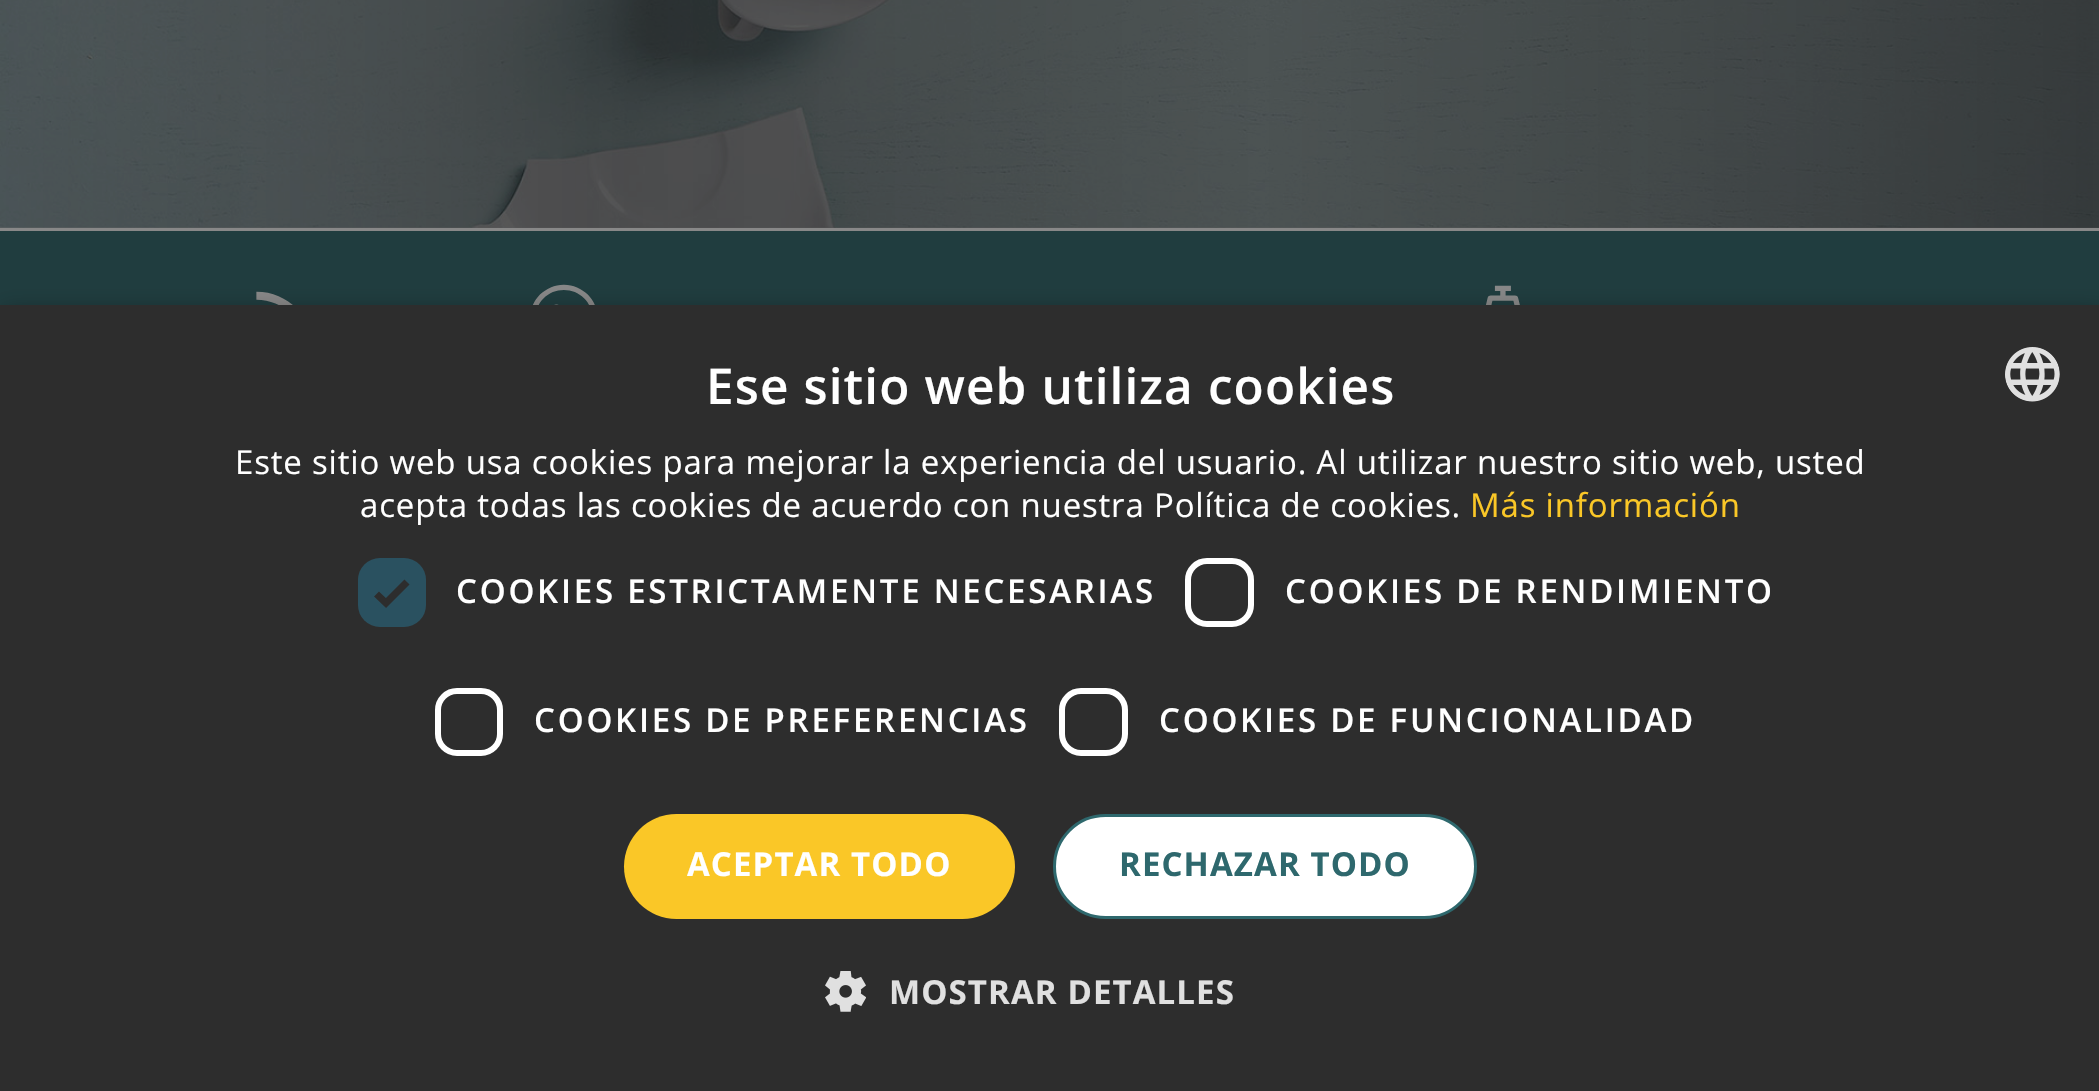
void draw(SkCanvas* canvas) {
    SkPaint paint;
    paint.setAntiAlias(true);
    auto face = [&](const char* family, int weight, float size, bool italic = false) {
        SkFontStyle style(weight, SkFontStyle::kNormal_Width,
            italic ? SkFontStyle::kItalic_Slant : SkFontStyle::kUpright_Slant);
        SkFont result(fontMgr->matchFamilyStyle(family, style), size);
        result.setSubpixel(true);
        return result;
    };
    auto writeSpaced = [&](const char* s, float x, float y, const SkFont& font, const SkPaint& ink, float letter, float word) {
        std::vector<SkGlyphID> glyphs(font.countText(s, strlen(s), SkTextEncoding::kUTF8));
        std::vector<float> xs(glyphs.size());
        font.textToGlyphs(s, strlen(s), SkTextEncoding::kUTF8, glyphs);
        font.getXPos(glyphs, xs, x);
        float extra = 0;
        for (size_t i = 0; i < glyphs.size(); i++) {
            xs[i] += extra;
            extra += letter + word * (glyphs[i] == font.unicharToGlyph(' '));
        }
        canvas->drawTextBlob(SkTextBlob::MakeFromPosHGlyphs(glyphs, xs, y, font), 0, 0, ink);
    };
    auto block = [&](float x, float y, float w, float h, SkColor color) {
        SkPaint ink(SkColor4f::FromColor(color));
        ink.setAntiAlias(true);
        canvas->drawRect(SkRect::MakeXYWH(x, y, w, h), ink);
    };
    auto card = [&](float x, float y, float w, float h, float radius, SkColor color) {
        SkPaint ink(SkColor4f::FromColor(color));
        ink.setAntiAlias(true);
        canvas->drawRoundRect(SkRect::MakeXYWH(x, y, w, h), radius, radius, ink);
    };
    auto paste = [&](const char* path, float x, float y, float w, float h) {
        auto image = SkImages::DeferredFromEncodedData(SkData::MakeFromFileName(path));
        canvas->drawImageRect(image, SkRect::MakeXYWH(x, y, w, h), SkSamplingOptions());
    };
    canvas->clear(SkColorSetRGB(136, 136, 136));
    paste("pic1.png", 0, 0, 2099, 228);
    {
        const SkColor colors[] = {SkColorSetARGB(51, 9, 9, 9), SkColorSetARGB(102, 9, 9, 9), SkColorSetARGB(77, 9, 9, 9), SkColorSetARGB(128, 9, 9, 9)};
        const float stops[] = {0, 0.3f, 0.6f, 1};
        const SkPoint ends[] = {{0, -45}, {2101, -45}};
        paint.setShader(SkGradientShader::MakeLinear(ends, colors, stops, 4, SkTileMode::kClamp));
        paint.setAlpha(255);
    }
    canvas->drawRect(SkRect::MakeXYWH(0, 0, 2099, 228), paint);
    block(0, 231, 2099, 74, SkColorSetRGB(32, 61, 63));
    paste("pic2.png", 256, 291, 37, 14);
    paste("pic3.png", 533, 284, 62, 21);
    paste("pic4.png", 1486, 285, 34, 20);
    paint.setShader(nullptr);
    paint.setColor(SkColorSetARGB(89, 0, 0, 0));
    paint.setMaskFilter(SkMaskFilter::MakeBlur(kNormal_SkBlurStyle, 11));
    canvas->drawRect(SkRect::MakeXYWH(3, 311, 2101, 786), paint);
    paint.setMaskFilter(nullptr);
    block(0, 305, 2099, 786, SkColorSetRGB(45, 45, 45));
    auto kFont1 = face("Open Sans", 600, 49.5f);
    paint.setColor(SK_ColorWHITE);
    writeSpaced("Ese sitio web utiliza cookies", 706, 404, kFont1, paint, 1.1f, 0);
    paste("pic5.png", 2005, 347, 55, 55);
    auto kFont2 = face("Open Sans", 400, 33);
    writeSpaced("Este sitio web usa cookies para mejorar la experiencia del usuario. Al utilizar nuestro sitio web, usted", 235, 474, kFont2, paint, 0.82f, 0);
    writeSpaced("acepta todas las cookies de acuerdo con nuestra Política de cookies.", 360, 517, kFont2, paint, 0.82f, 0);
    paint.setColor(SkColorSetRGB(250, 199, 39));
    writeSpaced("Más información", 1470, 517, kFont2, paint, 0.82f, 0);
    card(358, 558, 68, 69, 22, SkColorSetRGB(42, 81, 96));
    paint.setStyle(SkPaint::kStroke_Style);
    paint.setStrokeWidth(7.2f);
    paint.setColor(SkColorSetRGB(45, 45, 45));
    canvas->drawPath(SkPathBuilder().moveTo(376.5f, 594).lineTo(386, 603).lineTo(407, 582).detach(), paint);
    auto kFont3 = face("Open Sans", 600, 33);
    paint.setStyle(SkPaint::kFill_Style);
    paint.setColor(SK_ColorWHITE);
    writeSpaced("COOKIES ESTRICTAMENTE NECESARIAS", 456, 603, kFont3, paint, 2.75f, 0);
    paint.setStyle(SkPaint::kStroke_Style);
    paint.setStrokeWidth(6);
    canvas->drawRoundRect(SkRect::MakeXYWH(1188, 561, 63, 63), 19, 19, paint);
    paint.setStyle(SkPaint::kFill_Style);
    writeSpaced("COOKIES DE RENDIMIENTO", 1285, 603, kFont3, paint, 2.75f, 0);
    paint.setStyle(SkPaint::kStroke_Style);
    canvas->drawRoundRect(SkRect::MakeXYWH(438, 691, 62, 62), 19, 19, paint);
    paint.setStyle(SkPaint::kFill_Style);
    writeSpaced("COOKIES DE PREFERENCIAS", 534, 732, kFont3, paint, 2.75f, 0);
    paint.setStyle(SkPaint::kStroke_Style);
    canvas->drawRoundRect(SkRect::MakeXYWH(1062, 691, 63, 62), 19, 19, paint);
    paint.setStyle(SkPaint::kFill_Style);
    writeSpaced("COOKIES DE FUNCIONALIDAD", 1159, 732, kFont3, paint, 2.75f, 0);
    card(624, 814, 391, 105, 52.5f, SkColorSetRGB(250, 199, 39));
    auto kFont4 = face("Open Sans", 700, 33);
    writeSpaced("ACEPTAR TODO", 687, 876, kFont4, paint, 1.1f, 0);
    canvas->drawRoundRect(SkRect::MakeXYWH(1054.5f, 815.5f, 421, 102), 51, 51, paint);
    paint.setStyle(SkPaint::kStroke_Style);
    paint.setStrokeWidth(3);
    paint.setColor(SkColorSetRGB(46, 104, 109));
    canvas->drawRoundRect(SkRect::MakeXYWH(1054.5f, 815.5f, 421, 102), 51, 51, paint);
    paint.setStyle(SkPaint::kFill_Style);
    writeSpaced("RECHAZAR TODO", 1119, 876, kFont4, paint, 1.1f, 0);
    paste("pic6.png", 825, 971, 41, 41);
    paint.setColor(SkColorSetRGB(224, 224, 224));
    writeSpaced("MOSTRAR DETALLES", 889, 1004, kFont4, paint, 1.1f, 0);
}
